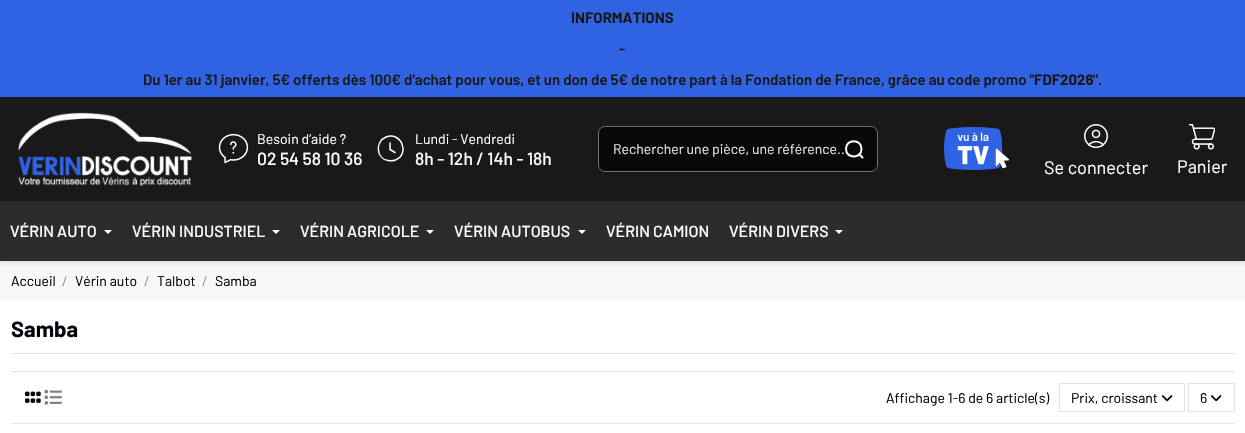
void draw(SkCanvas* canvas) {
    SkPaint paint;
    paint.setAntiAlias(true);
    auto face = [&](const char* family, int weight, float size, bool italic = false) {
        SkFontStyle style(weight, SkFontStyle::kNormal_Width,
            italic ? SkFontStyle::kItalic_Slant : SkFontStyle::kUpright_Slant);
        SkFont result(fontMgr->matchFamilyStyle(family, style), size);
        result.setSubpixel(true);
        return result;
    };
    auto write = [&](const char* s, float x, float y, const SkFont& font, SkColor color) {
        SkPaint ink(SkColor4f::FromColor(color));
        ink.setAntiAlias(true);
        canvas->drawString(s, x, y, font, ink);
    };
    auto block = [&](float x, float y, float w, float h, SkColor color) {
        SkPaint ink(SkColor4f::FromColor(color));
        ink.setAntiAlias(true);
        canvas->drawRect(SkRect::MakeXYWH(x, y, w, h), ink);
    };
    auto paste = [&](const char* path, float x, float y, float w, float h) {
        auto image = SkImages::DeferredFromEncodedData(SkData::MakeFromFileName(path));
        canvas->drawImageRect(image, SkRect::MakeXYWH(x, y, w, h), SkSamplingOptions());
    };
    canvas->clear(SK_ColorWHITE);
    block(0, 261, 1245, 39, SkColorSetRGB(248, 248, 248));
    paint.setColor(SkColorSetARGB(64, 0, 0, 0));
    paint.setMaskFilter(SkMaskFilter::MakeBlur(kNormal_SkBlurStyle, 3.5f));
    canvas->drawRect(SkRect::MakeXYWH(0, -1, 1245, 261), paint);
    paint.setMaskFilter(nullptr);
    block(0, 97, 1245, 104, SkColorSetRGB(26, 24, 25));
    block(0, 0, 1245, 97, SkColorSetRGB(48, 99, 228));
    auto kFont1 = face("Barlow", 700, 15);
    write("INFORMATIONS", 571, 23, kFont1, SkColorSetRGB(26, 24, 25));
    auto kFont2 = face("Barlow", 600, 15);
    write("-", 619, 54, kFont2, SkColorSetRGB(26, 24, 25));
    write("Du 1er au 31 janvier, 5€ offerts dès 100€ d'achat pour vous, et un don de 5€ de notre part à la Fondation de France, grâce au code promo \"", 143, 85, kFont2, SkColorSetRGB(26, 24, 25));
    write("FDF2026", 1034, 85, kFont1, SkColorSetRGB(26, 24, 25));
    write("\".", 1093, 85, kFont2, SkColorSetRGB(26, 24, 25));
    paste("pic1.png", 18, 112, 174, 74);
    paste("pic2.png", 218, 133, 31, 31);
    auto kFont3 = face("Barlow", 400, 14);
    write("Besoin d’aide ?", 257, 144, kFont3, SK_ColorWHITE);
    auto kFont4 = face("Barlow", 500, 17.5f);
    write("02 54 58 10 36", 257, 165, kFont4, SK_ColorWHITE);
    paint.setStyle(SkPaint::kStroke_Style);
    paint.setStrokeWidth(1.5f);
    paint.setStrokeCap(SkPaint::kRound_Cap);
    paint.setStrokeJoin(SkPaint::kRound_Join);
    paint.setColor(SK_ColorWHITE);
    canvas->drawPath(SkPathBuilder().moveTo(386, 137).cubicTo(401, 131, 410.5f, 154, 395.5f, 160).cubicTo(393, 161, 390.5f, 161, 388, 160.5f).cubicTo(376, 158.5f, 375, 141.5f, 386, 137).moveTo(390, 143).lineTo(390, 149.5f).lineTo(395, 152.5f).detach(), paint);
    write("Lundi - Vendredi", 415, 144, kFont3, SK_ColorWHITE);
    write("8h - 12h / 14h - 18h", 415, 165, kFont4, SK_ColorWHITE);
    paint.setStyle(SkPaint::kFill_Style);
    paint.setColor(SkColorSetRGB(8, 8, 8));
    canvas->drawRoundRect(SkRect::MakeXYWH(598.5f, 126.5f, 279, 45), 6.5f, 6.5f, paint);
    paint.setStyle(SkPaint::kStroke_Style);
    paint.setStrokeWidth(1);
    paint.setStrokeCap(SkPaint::kButt_Cap);
    paint.setStrokeJoin(SkPaint::kMiter_Join);
    paint.setColor(SkColorSetRGB(112, 112, 112));
    canvas->drawRoundRect(SkRect::MakeXYWH(598.5f, 126.5f, 279, 45), 6.5f, 6.5f, paint);
    write("Rechercher une pièce, une référence..", 613, 154, kFont3, SkColorSetRGB(227, 227, 227));
    paint.setStrokeWidth(2);
    paint.setStrokeCap(SkPaint::kRound_Cap);
    paint.setStrokeJoin(SkPaint::kRound_Join);
    paint.setColor(SK_ColorWHITE);
    canvas->drawPath(SkPathBuilder().moveTo(862.5f, 157.5f).lineTo(859.5f, 154.5f).moveTo(846, 149).cubicTo(846, 159, 861.5f, 159, 861.5f, 149).cubicTo(861.5f, 138.5f, 846, 138.5f, 846, 149).detach(), paint);
    paste("pic3.png", 944, 127, 65, 43);
    paste("pic4.png", 1084, 124, 24, 24);
    auto kFont5 = face("Barlow", 400, 18);
    write("Se connecter", 1044, 174, kFont5, SK_ColorWHITE);
    paste("pic5.png", 1189, 124, 26, 26);
    write("Panier", 1177, 173, kFont5, SK_ColorWHITE);
    block(0, 201, 1245, 60, SkColorSetRGB(44, 44, 44));
    auto kFont6 = face("Barlow", 500, 16);
    write("VÉRIN AUTO", 10, 237, kFont6, SK_ColorWHITE);
    paint.setStyle(SkPaint::kFill_Style);
    canvas->drawPath(SkPathBuilder().moveTo(104, 230).lineTo(112, 230).lineTo(108, 234).close().detach(), paint);
    write("VÉRIN INDUSTRIEL", 132, 237, kFont6, SK_ColorWHITE);
    canvas->drawPath(SkPathBuilder().moveTo(272, 230).lineTo(280, 230).lineTo(276, 234).close().detach(), paint);
    write("VÉRIN AGRICOLE", 300, 237, kFont6, SK_ColorWHITE);
    canvas->drawPath(SkPathBuilder().moveTo(426, 230).lineTo(434, 230).lineTo(430, 234).close().detach(), paint);
    write("VÉRIN AUTOBUS", 454, 237, kFont6, SK_ColorWHITE);
    canvas->drawPath(SkPathBuilder().moveTo(578, 230).lineTo(586, 230).lineTo(582, 234).close().detach(), paint);
    write("VÉRIN CAMION", 606, 237, kFont6, SK_ColorWHITE);
    write("VÉRIN DIVERS", 729, 237, kFont6, SK_ColorWHITE);
    canvas->drawPath(SkPathBuilder().moveTo(835, 230).lineTo(843, 230).lineTo(839, 234).close().detach(), paint);
    write("Accueil", 11, 286, kFont3, SkColorSetRGB(1, 6, 11));
    write("/", 62, 286, kFont3, SkColorSetRGB(149, 151, 153));
    write("Vérin auto", 75, 286, kFont3, SkColorSetRGB(1, 6, 11));
    write("/", 144, 286, kFont3, SkColorSetRGB(149, 151, 153));
    write("Talbot", 157, 286, kFont3, SkColorSetRGB(1, 6, 11));
    write("/", 202, 286, kFont3, SkColorSetRGB(149, 151, 153));
    write("Samba", 215, 286, kFont3, SkColorSetRGB(1, 6, 11));
    block(11, 353, 1224, 1, SkColorSetRGB(227, 227, 227));
    auto kFont7 = face("Barlow", 700, 22);
    write("Samba", 11, 337, kFont7, SkColorSetRGB(1, 6, 11));
    block(11, 371, 1224, 1, SkColorSetRGB(231, 231, 231));
    block(11, 423, 1224, 1, SkColorSetRGB(231, 231, 231));
    paste("pic6.png", 25, 391, 16, 12);
    paste("pic7.png", 44, 389, 18, 16);
    write("Affichage 1-6 de 6 article(s)", 886, 403, kFont3, SkColorSetRGB(1, 6, 11));
    paint.setStyle(SkPaint::kStroke_Style);
    paint.setStrokeWidth(1);
    paint.setStrokeCap(SkPaint::kButt_Cap);
    paint.setStrokeJoin(SkPaint::kMiter_Join);
    paint.setColor(SkColorSetRGB(227, 227, 227));
    canvas->drawRect(SkRect::MakeXYWH(1059.5f, 383.5f, 125, 28), paint);
    write("Prix, croissant", 1071, 403, kFont3, SkColorSetRGB(1, 6, 11));
    paste("pic8.png", 1162, 395, 11, 7);
    canvas->drawRect(SkRect::MakeXYWH(1188.5f, 383.5f, 46, 28), paint);
    write("6", 1200, 403, kFont3, SkColorSetRGB(1, 6, 11));
    paste("pic8.png", 1211, 395, 11, 7);
}
